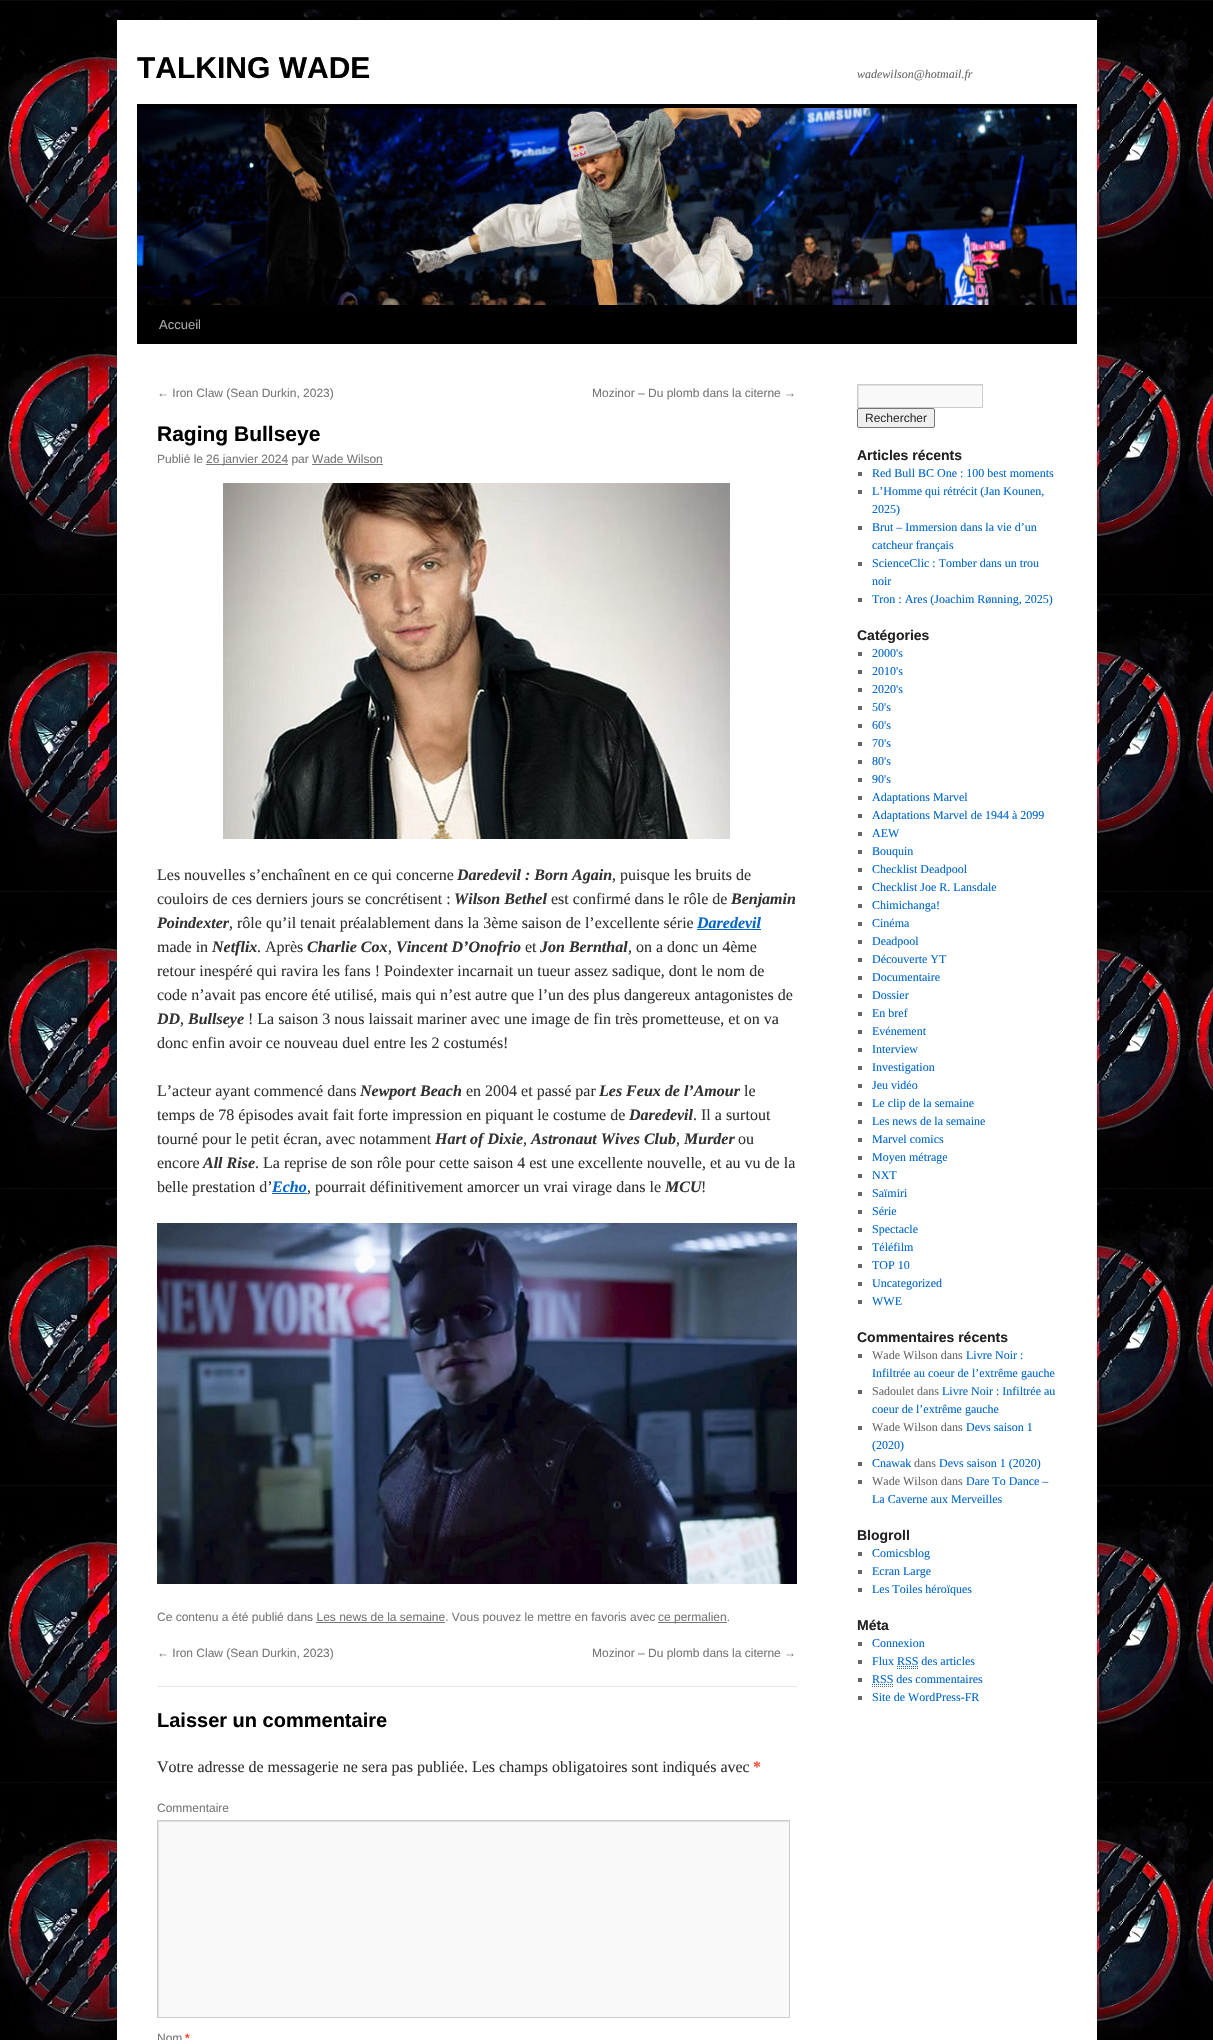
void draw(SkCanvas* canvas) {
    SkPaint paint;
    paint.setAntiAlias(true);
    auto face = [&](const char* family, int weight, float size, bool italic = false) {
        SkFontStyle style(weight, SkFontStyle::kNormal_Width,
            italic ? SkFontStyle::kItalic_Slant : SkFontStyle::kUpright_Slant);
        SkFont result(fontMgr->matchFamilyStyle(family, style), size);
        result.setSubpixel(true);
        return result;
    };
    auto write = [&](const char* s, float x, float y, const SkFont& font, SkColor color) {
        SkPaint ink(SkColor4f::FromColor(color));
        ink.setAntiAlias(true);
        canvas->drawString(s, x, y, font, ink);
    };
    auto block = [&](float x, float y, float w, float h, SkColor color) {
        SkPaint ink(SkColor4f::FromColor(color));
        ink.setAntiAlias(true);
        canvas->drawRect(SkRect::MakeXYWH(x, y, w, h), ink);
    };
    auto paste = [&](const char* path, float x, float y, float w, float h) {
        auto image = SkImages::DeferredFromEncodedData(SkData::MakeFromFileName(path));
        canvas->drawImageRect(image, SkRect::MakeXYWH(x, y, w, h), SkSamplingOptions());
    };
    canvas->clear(SK_ColorWHITE);
    paste("pic1.png", 0, 0, 1213, 2040);
    block(117, 20, 980, 2020, SK_ColorWHITE);
    auto kFont1 = face("Liberation Sans", 700, 30);
    write("TALKING WADE", 137, 78, kFont1, SK_ColorBLACK);
    auto kFont2 = face("Liberation Serif", 400, 12, true);
    write("wadewilson@hotmail.fr", 857, 78, kFont2, SkColorSetRGB(102, 102, 102));
    block(137, 104, 940, 4, SK_ColorBLACK);
    block(137, 305, 940, 39, SK_ColorBLACK);
    paste("pic2.png", 137, 108, 940, 197);
    auto kFont3 = face("Liberation Sans", 400, 13);
    write("Accueil", 159, 329, kFont3, SkColorSetRGB(170, 170, 170));
    auto kFont4 = face("Liberation Sans", 400, 12);
    write("← Iron Claw (Sean Durkin, 2023)", 157, 397, kFont4, SkColorSetRGB(119, 119, 119));
    write("Mozinor – Du plomb dans la citerne →", 592, 397, kFont4, SkColorSetRGB(119, 119, 119));
    auto kFont5 = face("Liberation Sans", 700, 21);
    write("Raging Bullseye", 157, 441, kFont5, SK_ColorBLACK);
    write("Publié le", 157, 463, kFont4, SkColorSetRGB(119, 119, 119));
    block(206, 464, 82, 1, SkColorSetRGB(119, 119, 119));
    write("26 janvier 2024 par Wade Wilson", 206, 463, kFont4, SkColorSetRGB(119, 119, 119));
    block(312, 464, 71, 1, SkColorSetRGB(119, 119, 119));
    paste("pic3.png", 223, 483, 507, 356);
    auto kFont6 = face("Liberation Serif", 400, 16);
    write("Les nouvelles s’enchaînent en ce qui concerne", 157, 880, kFont6, SkColorSetRGB(51, 51, 51));
    auto kFont7 = face("Liberation Serif", 700, 16, true);
    write("Daredevil : Born Again", 457, 880, kFont7, SkColorSetRGB(51, 51, 51));
    write(", puisque les bruits de", 612, 880, kFont6, SkColorSetRGB(51, 51, 51));
    write("couloirs de ces derniers jours se concrétisent :", 157, 904, kFont6, SkColorSetRGB(51, 51, 51));
    write("Wilson Bethel", 454, 904, kFont7, SkColorSetRGB(51, 51, 51));
    write("est confirmé dans le rôle de", 551, 904, kFont6, SkColorSetRGB(51, 51, 51));
    write("Benjamin", 731, 904, kFont7, SkColorSetRGB(51, 51, 51));
    write("Poindexter", 157, 928, kFont7, SkColorSetRGB(51, 51, 51));
    write(", rôle qu’il tenait préalablement dans la 3ème saison de l’excellente série", 229, 928, kFont6, SkColorSetRGB(51, 51, 51));
    write("Daredevil", 697, 928, kFont7, SkColorSetRGB(0, 102, 204));
    block(697, 929, 64, 1, SkColorSetRGB(0, 102, 204));
    write("made in", 157, 952, kFont6, SkColorSetRGB(51, 51, 51));
    write("Netflix", 212, 952, kFont7, SkColorSetRGB(51, 51, 51));
    write(". Après", 257, 952, kFont6, SkColorSetRGB(51, 51, 51));
    write("Charlie Cox", 307, 952, kFont7, SkColorSetRGB(51, 51, 51));
    write(",", 388, 952, kFont6, SkColorSetRGB(51, 51, 51));
    write("Vincent D’Onofrio", 396, 952, kFont7, SkColorSetRGB(51, 51, 51));
    write("et", 525, 952, kFont6, SkColorSetRGB(51, 51, 51));
    write("Jon Bernthal", 540, 952, kFont7, SkColorSetRGB(51, 51, 51));
    write(", on a donc un 4ème", 628, 952, kFont6, SkColorSetRGB(51, 51, 51));
    write("retour inespéré qui ravira les fans ! Poindexter incarnait un tueur assez sadique, dont le nom de", 157, 976, kFont6, SkColorSetRGB(51, 51, 51));
    write("code n’avait pas encore été utilisé, mais qui n’est autre que l’un des plus dangereux antagonistes de", 157, 1000, kFont6, SkColorSetRGB(51, 51, 51));
    write("DD", 157, 1024, kFont7, SkColorSetRGB(51, 51, 51));
    write("Bullseye", 188, 1024, kFont7, SkColorSetRGB(51, 51, 51));
    write("! La saison 3 nous laissait mariner avec une image de fin très prometteuse, et on va", 248, 1024, kFont6, SkColorSetRGB(51, 51, 51));
    write(",", 180, 1024, kFont6, SkColorSetRGB(51, 51, 51));
    write("donc enfin avoir ce nouveau duel entre les 2 costumés!", 157, 1048, kFont6, SkColorSetRGB(51, 51, 51));
    write("L’acteur ayant commencé dans", 157, 1096, kFont6, SkColorSetRGB(51, 51, 51));
    write("Newport Beach", 360, 1096, kFont7, SkColorSetRGB(51, 51, 51));
    write("en 2004 et passé par", 466, 1096, kFont6, SkColorSetRGB(51, 51, 51));
    write("Les Feux de l’Amour", 599, 1096, kFont7, SkColorSetRGB(51, 51, 51));
    write("le", 744, 1096, kFont6, SkColorSetRGB(51, 51, 51));
    write("temps de 78 épisodes avait fait forte impression en piquant le costume de", 157, 1120, kFont6, SkColorSetRGB(51, 51, 51));
    write("Daredevil", 629, 1120, kFont7, SkColorSetRGB(51, 51, 51));
    write(". Il a surtout", 693, 1120, kFont6, SkColorSetRGB(51, 51, 51));
    write("tourné pour le petit écran, avec notamment", 157, 1144, kFont6, SkColorSetRGB(51, 51, 51));
    write("Hart of Dixie", 435, 1144, kFont7, SkColorSetRGB(51, 51, 51));
    write(",", 523, 1144, kFont6, SkColorSetRGB(51, 51, 51));
    write("Astronaut Wives Club", 531, 1144, kFont7, SkColorSetRGB(51, 51, 51));
    write(",", 676, 1144, kFont6, SkColorSetRGB(51, 51, 51));
    write("Murder", 684, 1144, kFont7, SkColorSetRGB(51, 51, 51));
    write("ou", 738, 1144, kFont6, SkColorSetRGB(51, 51, 51));
    write("encore", 157, 1168, kFont6, SkColorSetRGB(51, 51, 51));
    write("All Rise", 203, 1168, kFont7, SkColorSetRGB(51, 51, 51));
    write(". La reprise de son rôle pour cette saison 4 est une excellente nouvelle, et au vu de la", 255, 1168, kFont6, SkColorSetRGB(51, 51, 51));
    write("belle prestation d’", 157, 1192, kFont6, SkColorSetRGB(51, 51, 51));
    write("Echo", 272, 1192, kFont7, SkColorSetRGB(0, 102, 204));
    block(272, 1193, 35, 1, SkColorSetRGB(0, 102, 204));
    write(", pourrait définitivement amorcer un vrai virage dans le", 307, 1192, kFont6, SkColorSetRGB(51, 51, 51));
    write("MCU", 665, 1192, kFont7, SkColorSetRGB(51, 51, 51));
    write("!", 701, 1192, kFont6, SkColorSetRGB(51, 51, 51));
    paste("pic4.png", 157, 1223, 640, 361);
    write("Ce contenu a été publié dans Les news de la semaine. Vous pouvez le mettre en favoris avec", 157, 1621, kFont4, SkColorSetRGB(119, 119, 119));
    block(658, 1622, 69, 1, SkColorSetRGB(119, 119, 119));
    write("ce permalien.", 658, 1621, kFont4, SkColorSetRGB(119, 119, 119));
    block(316, 1622, 129, 1, SkColorSetRGB(119, 119, 119));
    write("← Iron Claw (Sean Durkin, 2023)", 157, 1657, kFont4, SkColorSetRGB(119, 119, 119));
    write("Mozinor – Du plomb dans la citerne →", 592, 1657, kFont4, SkColorSetRGB(119, 119, 119));
    block(157, 1686, 640, 1, SkColorSetRGB(231, 231, 231));
    auto kFont8 = face("Liberation Sans", 700, 20);
    write("Laisser un commentaire", 157, 1727, kFont8, SK_ColorBLACK);
    write("Votre adresse de messagerie ne sera pas publiée. Les champs obligatoires sont indiqués avec", 157, 1772, kFont6, SkColorSetRGB(51, 51, 51));
    auto kFont9 = face("Liberation Serif", 700, 16);
    write("*", 753, 1772, kFont9, SkColorSetRGB(255, 75, 51));
    write("Commentaire", 157, 1812, kFont4, SkColorSetRGB(119, 119, 119));
    block(159, 1822, 630, 195, SkColorSetRGB(249, 249, 249));
    canvas->save();
    canvas->clipRect(SkRect::MakeXYWH(158, 1821, 631, 196));
    paint.setColor(SkColorSetRGB(224, 224, 224));
    canvas->drawPath(SkPathBuilder(SkPathFillType::kEvenOdd).moveTo(59, 1722).lineTo(888, 1722).lineTo(888, 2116).lineTo(59, 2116).close().moveTo(159, 1822).lineTo(790, 1822).lineTo(790, 2018).lineTo(159, 2018).close().detach(), paint);
    canvas->restore();
    paint.setStyle(SkPaint::kStroke_Style);
    paint.setStrokeWidth(1);
    paint.setColor(SkColorSetRGB(204, 204, 204));
    canvas->drawRect(SkRect::MakeXYWH(157.5f, 1820.5f, 632, 197), paint);
    write("Nom", 157, 2042, kFont4, SkColorSetRGB(119, 119, 119));
    auto kFont10 = face("Liberation Sans", 700, 12);
    write("*", 185, 2042, kFont10, SkColorSetRGB(255, 75, 51));
    block(859, 386, 123, 21, SkColorSetRGB(249, 249, 249));
    canvas->save();
    canvas->clipRect(SkRect::MakeXYWH(858, 385, 124, 22));
    paint.setStyle(SkPaint::kFill_Style);
    paint.setColor(SkColorSetRGB(224, 224, 224));
    canvas->drawPath(SkPathBuilder(SkPathFillType::kEvenOdd).moveTo(759, 286).lineTo(1081, 286).lineTo(1081, 506).lineTo(759, 506).close().moveTo(859, 386).lineTo(983, 386).lineTo(983, 408).lineTo(859, 408).close().detach(), paint);
    canvas->restore();
    paint.setStyle(SkPaint::kStroke_Style);
    paint.setColor(SkColorSetRGB(204, 204, 204));
    canvas->drawRect(SkRect::MakeXYWH(857.5f, 384.5f, 125, 23), paint);
    paint.setStyle(SkPaint::kFill_Style);
    paint.setColor(SkColorSetRGB(239, 239, 239));
    canvas->drawRoundRect(SkRect::MakeXYWH(857.5f, 408.5f, 77, 19), 1.5f, 1.5f, paint);
    paint.setStyle(SkPaint::kStroke_Style);
    paint.setColor(SkColorSetRGB(118, 118, 118));
    canvas->drawRoundRect(SkRect::MakeXYWH(857.5f, 408.5f, 77, 19), 1.5f, 1.5f, paint);
    write("Rechercher", 865, 422, kFont4, SkColorSetRGB(51, 51, 51));
    auto kFont11 = face("Liberation Sans", 700, 14);
    write("Articles récents", 857, 460, kFont11, SkColorSetRGB(34, 34, 34));
    block(858, 472, 4, 4, SkColorSetRGB(102, 102, 102));
    auto kFont12 = face("Liberation Serif", 400, 12);
    write("Red Bull BC One : 100 best moments", 872, 477, kFont12, SkColorSetRGB(0, 102, 204));
    block(858, 490, 4, 4, SkColorSetRGB(102, 102, 102));
    write("L’Homme qui rétrécit (Jan Kounen,", 872, 495, kFont12, SkColorSetRGB(0, 102, 204));
    write("2025)", 872, 513, kFont12, SkColorSetRGB(0, 102, 204));
    block(858, 526, 4, 4, SkColorSetRGB(102, 102, 102));
    write("Brut – Immersion dans la vie d’un", 872, 531, kFont12, SkColorSetRGB(0, 102, 204));
    write("catcheur français", 872, 549, kFont12, SkColorSetRGB(0, 102, 204));
    block(858, 562, 4, 4, SkColorSetRGB(102, 102, 102));
    write("ScienceClic : Tomber dans un trou", 872, 567, kFont12, SkColorSetRGB(0, 102, 204));
    write("noir", 872, 585, kFont12, SkColorSetRGB(0, 102, 204));
    block(858, 598, 4, 4, SkColorSetRGB(102, 102, 102));
    write("Tron : Ares (Joachim Rønning, 2025)", 872, 603, kFont12, SkColorSetRGB(0, 102, 204));
    write("Catégories", 857, 640, kFont11, SkColorSetRGB(34, 34, 34));
    block(858, 652, 4, 4, SkColorSetRGB(102, 102, 102));
    write("2000's", 872, 657, kFont12, SkColorSetRGB(0, 102, 204));
    block(858, 670, 4, 4, SkColorSetRGB(102, 102, 102));
    write("2010's", 872, 675, kFont12, SkColorSetRGB(0, 102, 204));
    block(858, 688, 4, 4, SkColorSetRGB(102, 102, 102));
    write("2020's", 872, 693, kFont12, SkColorSetRGB(0, 102, 204));
    block(858, 706, 4, 4, SkColorSetRGB(102, 102, 102));
    write("50's", 872, 711, kFont12, SkColorSetRGB(0, 102, 204));
    block(858, 724, 4, 4, SkColorSetRGB(102, 102, 102));
    write("60's", 872, 729, kFont12, SkColorSetRGB(0, 102, 204));
    block(858, 742, 4, 4, SkColorSetRGB(102, 102, 102));
    write("70's", 872, 747, kFont12, SkColorSetRGB(0, 102, 204));
    block(858, 760, 4, 4, SkColorSetRGB(102, 102, 102));
    write("80's", 872, 765, kFont12, SkColorSetRGB(0, 102, 204));
    block(858, 778, 4, 4, SkColorSetRGB(102, 102, 102));
    write("90's", 872, 783, kFont12, SkColorSetRGB(0, 102, 204));
    block(858, 796, 4, 4, SkColorSetRGB(102, 102, 102));
    write("Adaptations Marvel", 872, 801, kFont12, SkColorSetRGB(0, 102, 204));
    block(858, 814, 4, 4, SkColorSetRGB(102, 102, 102));
    write("Adaptations Marvel de 1944 à 2099", 872, 819, kFont12, SkColorSetRGB(0, 102, 204));
    block(858, 832, 4, 4, SkColorSetRGB(102, 102, 102));
    write("AEW", 872, 837, kFont12, SkColorSetRGB(0, 102, 204));
    block(858, 850, 4, 4, SkColorSetRGB(102, 102, 102));
    write("Bouquin", 872, 855, kFont12, SkColorSetRGB(0, 102, 204));
    block(858, 868, 4, 4, SkColorSetRGB(102, 102, 102));
    write("Checklist Deadpool", 872, 873, kFont12, SkColorSetRGB(0, 102, 204));
    block(858, 886, 4, 4, SkColorSetRGB(102, 102, 102));
    write("Checklist Joe R. Lansdale", 872, 891, kFont12, SkColorSetRGB(0, 102, 204));
    block(858, 904, 4, 4, SkColorSetRGB(102, 102, 102));
    write("Chimichanga!", 872, 909, kFont12, SkColorSetRGB(0, 102, 204));
    block(858, 922, 4, 4, SkColorSetRGB(102, 102, 102));
    write("Cinéma", 872, 927, kFont12, SkColorSetRGB(0, 102, 204));
    block(858, 940, 4, 4, SkColorSetRGB(102, 102, 102));
    write("Deadpool", 872, 945, kFont12, SkColorSetRGB(0, 102, 204));
    block(858, 958, 4, 4, SkColorSetRGB(102, 102, 102));
    write("Découverte YT", 872, 963, kFont12, SkColorSetRGB(0, 102, 204));
    block(858, 976, 4, 4, SkColorSetRGB(102, 102, 102));
    write("Documentaire", 872, 981, kFont12, SkColorSetRGB(0, 102, 204));
    block(858, 994, 4, 4, SkColorSetRGB(102, 102, 102));
    write("Dossier", 872, 999, kFont12, SkColorSetRGB(0, 102, 204));
    block(858, 1012, 4, 4, SkColorSetRGB(102, 102, 102));
    write("En bref", 872, 1017, kFont12, SkColorSetRGB(0, 102, 204));
    block(858, 1030, 4, 4, SkColorSetRGB(102, 102, 102));
    write("Evénement", 872, 1035, kFont12, SkColorSetRGB(0, 102, 204));
    block(858, 1048, 4, 4, SkColorSetRGB(102, 102, 102));
    write("Interview", 872, 1053, kFont12, SkColorSetRGB(0, 102, 204));
    block(858, 1066, 4, 4, SkColorSetRGB(102, 102, 102));
    write("Investigation", 872, 1071, kFont12, SkColorSetRGB(0, 102, 204));
    block(858, 1084, 4, 4, SkColorSetRGB(102, 102, 102));
    write("Jeu vidéo", 872, 1089, kFont12, SkColorSetRGB(0, 102, 204));
    block(858, 1102, 4, 4, SkColorSetRGB(102, 102, 102));
    write("Le clip de la semaine", 872, 1107, kFont12, SkColorSetRGB(0, 102, 204));
    block(858, 1120, 4, 4, SkColorSetRGB(102, 102, 102));
    write("Les news de la semaine", 872, 1125, kFont12, SkColorSetRGB(0, 102, 204));
    block(858, 1138, 4, 4, SkColorSetRGB(102, 102, 102));
    write("Marvel comics", 872, 1143, kFont12, SkColorSetRGB(0, 102, 204));
    block(858, 1156, 4, 4, SkColorSetRGB(102, 102, 102));
    write("Moyen métrage", 872, 1161, kFont12, SkColorSetRGB(0, 102, 204));
    block(858, 1174, 4, 4, SkColorSetRGB(102, 102, 102));
    write("NXT", 872, 1179, kFont12, SkColorSetRGB(0, 102, 204));
    block(858, 1192, 4, 4, SkColorSetRGB(102, 102, 102));
    write("Saïmiri", 872, 1197, kFont12, SkColorSetRGB(0, 102, 204));
    block(858, 1210, 4, 4, SkColorSetRGB(102, 102, 102));
    write("Série", 872, 1215, kFont12, SkColorSetRGB(0, 102, 204));
    block(858, 1228, 4, 4, SkColorSetRGB(102, 102, 102));
    write("Spectacle", 872, 1233, kFont12, SkColorSetRGB(0, 102, 204));
    block(858, 1246, 4, 4, SkColorSetRGB(102, 102, 102));
    write("Téléfilm", 872, 1251, kFont12, SkColorSetRGB(0, 102, 204));
    block(858, 1264, 4, 4, SkColorSetRGB(102, 102, 102));
    write("TOP 10", 872, 1269, kFont12, SkColorSetRGB(0, 102, 204));
    block(858, 1282, 4, 4, SkColorSetRGB(102, 102, 102));
    write("Uncategorized", 872, 1287, kFont12, SkColorSetRGB(0, 102, 204));
    block(858, 1300, 4, 4, SkColorSetRGB(102, 102, 102));
    write("WWE", 872, 1305, kFont12, SkColorSetRGB(0, 102, 204));
    write("Commentaires récents", 857, 1342, kFont11, SkColorSetRGB(34, 34, 34));
    block(858, 1354, 4, 4, SkColorSetRGB(102, 102, 102));
    write("Wade Wilson dans", 872, 1359, kFont12, SkColorSetRGB(102, 102, 102));
    write("Livre Noir :", 966, 1359, kFont12, SkColorSetRGB(0, 102, 204));
    write("Infiltrée au coeur de l’extrême gauche", 872, 1377, kFont12, SkColorSetRGB(0, 102, 204));
    block(858, 1390, 4, 4, SkColorSetRGB(102, 102, 102));
    write("Sadoulet dans", 872, 1395, kFont12, SkColorSetRGB(102, 102, 102));
    write("Livre Noir : Infiltrée au", 942, 1395, kFont12, SkColorSetRGB(0, 102, 204));
    write("coeur de l’extrême gauche", 872, 1413, kFont12, SkColorSetRGB(0, 102, 204));
    block(858, 1426, 4, 4, SkColorSetRGB(102, 102, 102));
    write("Wade Wilson dans", 872, 1431, kFont12, SkColorSetRGB(102, 102, 102));
    write("Devs saison 1", 966, 1431, kFont12, SkColorSetRGB(0, 102, 204));
    write("(2020)", 872, 1449, kFont12, SkColorSetRGB(0, 102, 204));
    block(858, 1462, 4, 4, SkColorSetRGB(102, 102, 102));
    write("Cnawak", 872, 1467, kFont12, SkColorSetRGB(0, 102, 204));
    write("dans", 914, 1467, kFont12, SkColorSetRGB(102, 102, 102));
    write("Devs saison 1 (2020)", 939, 1467, kFont12, SkColorSetRGB(0, 102, 204));
    block(858, 1480, 4, 4, SkColorSetRGB(102, 102, 102));
    write("Wade Wilson dans", 872, 1485, kFont12, SkColorSetRGB(102, 102, 102));
    write("Dare To Dance –", 966, 1485, kFont12, SkColorSetRGB(0, 102, 204));
    write("La Caverne aux Merveilles", 872, 1503, kFont12, SkColorSetRGB(0, 102, 204));
    write("Blogroll", 857, 1540, kFont11, SkColorSetRGB(34, 34, 34));
    block(858, 1552, 4, 4, SkColorSetRGB(102, 102, 102));
    write("Comicsblog", 872, 1557, kFont12, SkColorSetRGB(0, 102, 204));
    block(858, 1570, 4, 4, SkColorSetRGB(102, 102, 102));
    write("Ecran Large", 872, 1575, kFont12, SkColorSetRGB(0, 102, 204));
    block(858, 1588, 4, 4, SkColorSetRGB(102, 102, 102));
    write("Les Toiles héroïques", 872, 1593, kFont12, SkColorSetRGB(0, 102, 204));
    write("Méta", 857, 1630, kFont11, SkColorSetRGB(34, 34, 34));
    block(858, 1642, 4, 4, SkColorSetRGB(102, 102, 102));
    write("Connexion", 872, 1647, kFont12, SkColorSetRGB(0, 102, 204));
    block(858, 1660, 4, 4, SkColorSetRGB(102, 102, 102));
    write("Flux RSS des articles", 872, 1665, kFont12, SkColorSetRGB(0, 102, 204));
    paint.setColor(SkColorSetRGB(102, 102, 102));
    paint.setPathEffect(SkDashPathEffect::Make({{1, 1}}, 0));
    canvas->drawPath(SkPathBuilder().moveTo(897, 1668.5f).lineTo(918, 1668.5f).detach(), paint);
    paint.setPathEffect(nullptr);
    paint.setColor(SkColorSetRGB(0, 102, 204));
    paint.setPathEffect(SkDashPathEffect::Make({{1, 1}}, 0));
    canvas->drawPath(SkPathBuilder().moveTo(897, 1666.5f).lineTo(918.5f, 1666.5f).detach(), paint);
    paint.setPathEffect(nullptr);
    block(858, 1678, 4, 4, SkColorSetRGB(102, 102, 102));
    write("RSS des commentaires", 872, 1683, kFont12, SkColorSetRGB(0, 102, 204));
    paint.setColor(SkColorSetRGB(102, 102, 102));
    paint.setPathEffect(SkDashPathEffect::Make({{1, 1}}, 0));
    canvas->drawPath(SkPathBuilder().moveTo(872, 1686.5f).lineTo(893, 1686.5f).detach(), paint);
    paint.setPathEffect(nullptr);
    paint.setColor(SkColorSetRGB(0, 102, 204));
    paint.setPathEffect(SkDashPathEffect::Make({{1, 1}}, 0));
    canvas->drawPath(SkPathBuilder().moveTo(872, 1684.5f).lineTo(893.5f, 1684.5f).detach(), paint);
    paint.setPathEffect(nullptr);
    block(858, 1696, 4, 4, SkColorSetRGB(102, 102, 102));
    write("Site de WordPress-FR", 872, 1701, kFont12, SkColorSetRGB(0, 102, 204));
}
